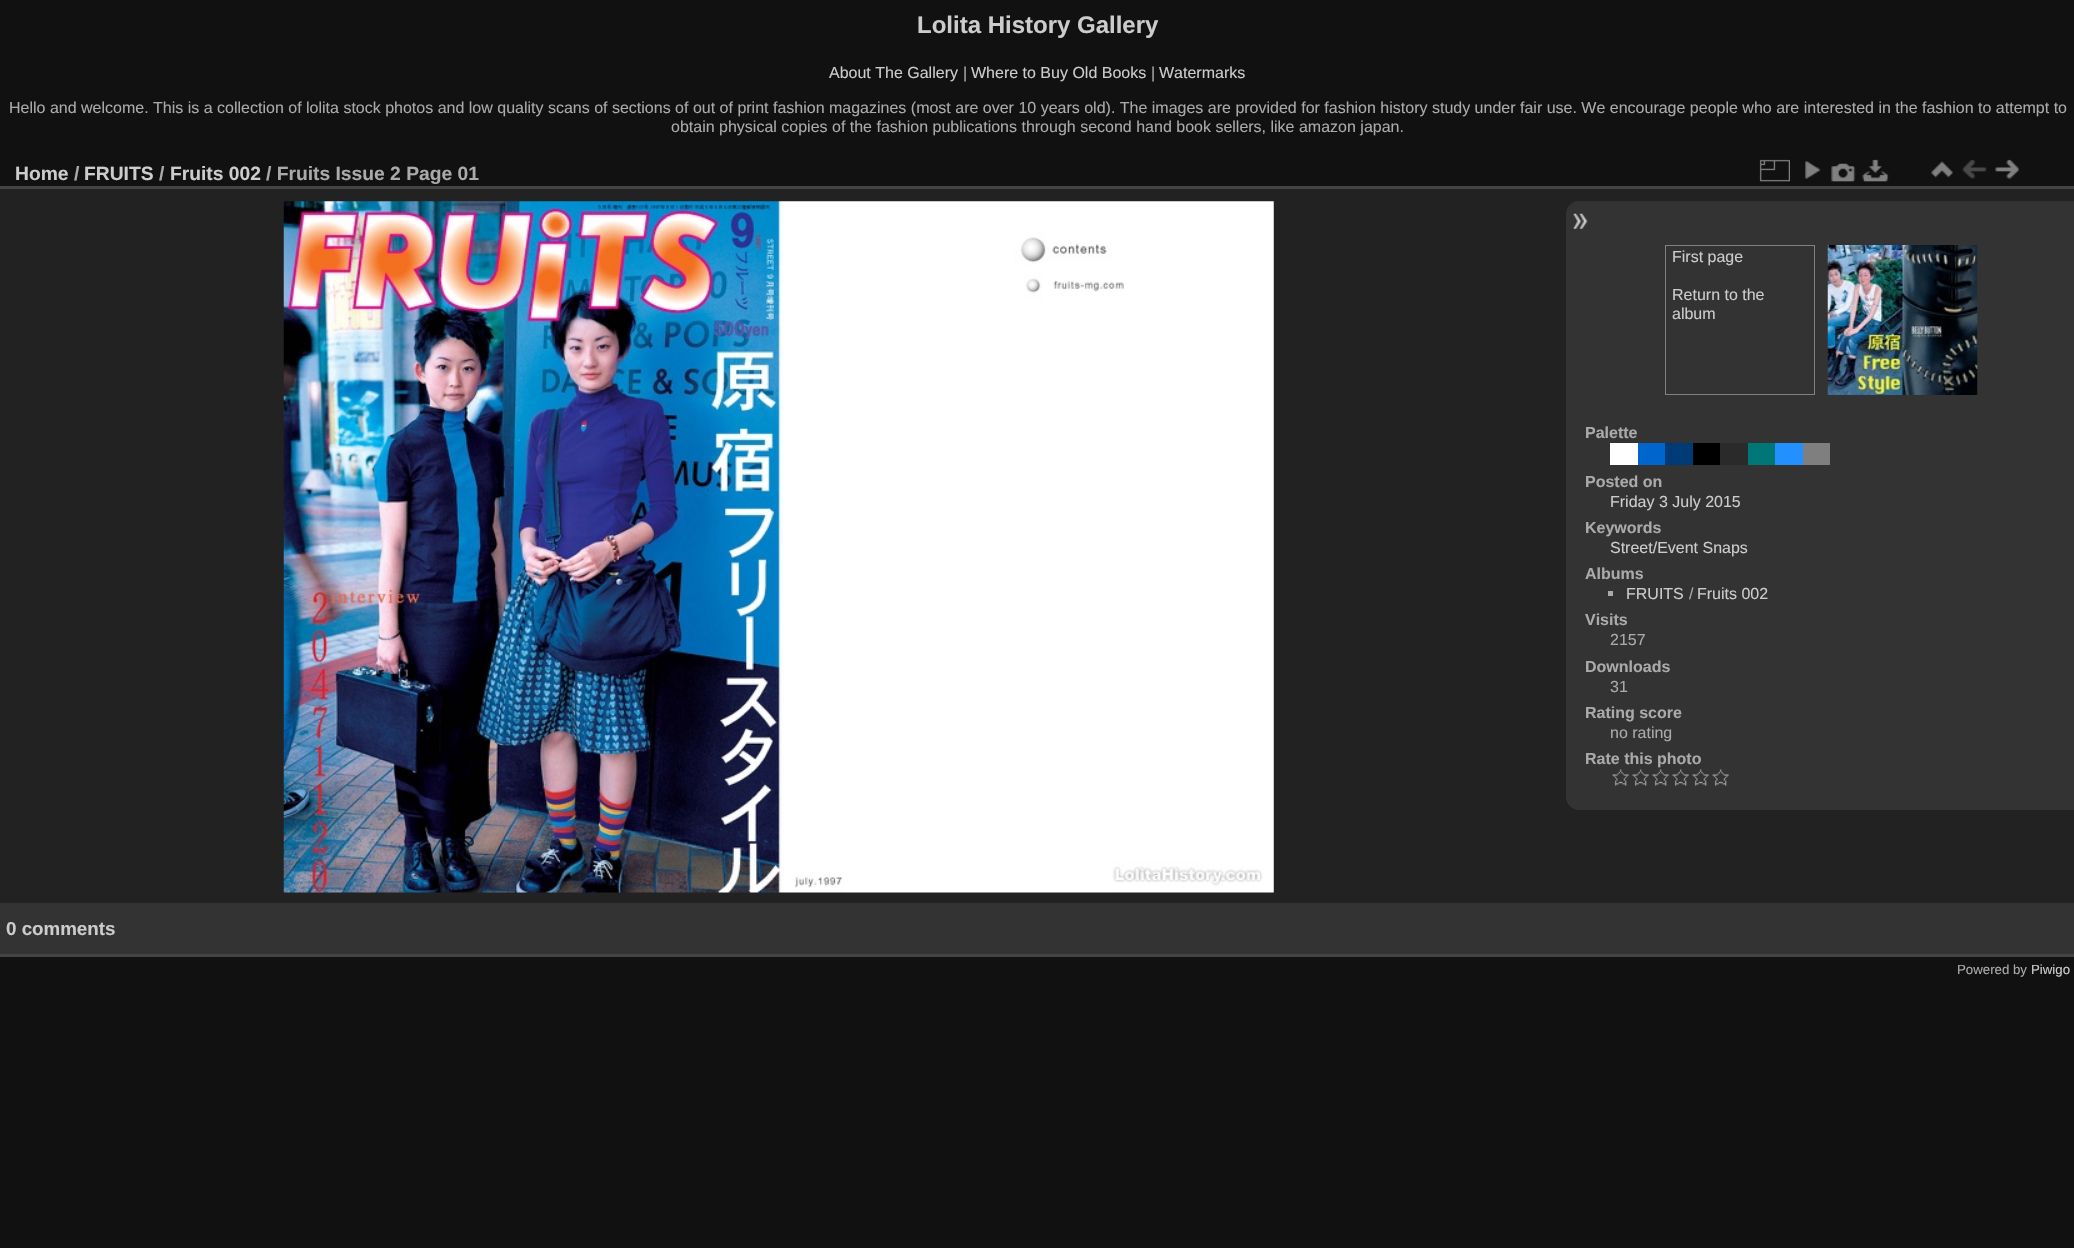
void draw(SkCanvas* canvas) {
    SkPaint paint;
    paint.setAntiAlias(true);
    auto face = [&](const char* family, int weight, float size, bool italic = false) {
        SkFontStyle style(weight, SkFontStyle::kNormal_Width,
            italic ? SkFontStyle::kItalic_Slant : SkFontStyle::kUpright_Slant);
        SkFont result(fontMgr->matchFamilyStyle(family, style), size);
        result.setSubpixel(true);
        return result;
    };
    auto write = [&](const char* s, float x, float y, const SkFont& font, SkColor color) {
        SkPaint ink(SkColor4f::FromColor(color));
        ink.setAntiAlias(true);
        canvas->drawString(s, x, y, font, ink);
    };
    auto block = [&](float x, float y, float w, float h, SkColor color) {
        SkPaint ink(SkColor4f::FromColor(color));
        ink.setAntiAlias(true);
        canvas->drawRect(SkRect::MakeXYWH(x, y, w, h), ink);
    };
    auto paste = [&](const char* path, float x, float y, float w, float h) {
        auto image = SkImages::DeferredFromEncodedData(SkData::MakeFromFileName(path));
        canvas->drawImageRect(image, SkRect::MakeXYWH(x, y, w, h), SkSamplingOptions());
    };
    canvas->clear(SkColorSetRGB(17, 17, 17));
    auto kFont1 = face("Liberation Sans", 700, 24);
    write("Lolita History Gallery", 917, 33, kFont1, SkColorSetRGB(204, 204, 204));
    auto kFont2 = face("Liberation Sans", 400, 16);
    write("About The Gallery", 829, 78, kFont2, SkColorSetRGB(204, 204, 204));
    write("|", 963, 78, kFont2, SkColorSetRGB(170, 170, 170));
    write("Where to Buy Old Books", 971, 78, kFont2, SkColorSetRGB(204, 204, 204));
    write("|", 1151, 78, kFont2, SkColorSetRGB(170, 170, 170));
    write("Watermarks", 1159, 78, kFont2, SkColorSetRGB(204, 204, 204));
    write("Hello and welcome. This is a collection of lolita stock photos and low quality scans of sections of out of print fashion magazines (most are over 10 years old). The images are provided for fashion history study under fair use. We encourage people who are interested in the fashion to attempt to", 9, 113, kFont2, SkColorSetRGB(170, 170, 170));
    write("obtain physical copies of the fashion publications through second hand book sellers, like amazon japan.", 671, 132, kFont2, SkColorSetRGB(170, 170, 170));
    block(0, 189, 2074, 714, SkColorSetRGB(34, 34, 34));
    block(0, 954, 2074, 3, SkColorSetRGB(68, 68, 68));
    block(0, 186, 2074, 3, SkColorSetRGB(68, 68, 68));
    auto kFont3 = face("Liberation Sans", 700, 19.25f);
    write("Home", 15, 180, kFont3, SkColorSetRGB(204, 204, 204));
    write("/", 74, 180, kFont3, SkColorSetRGB(170, 170, 170));
    write("FRUITS", 84, 180, kFont3, SkColorSetRGB(204, 204, 204));
    write("/", 159, 180, kFont3, SkColorSetRGB(170, 170, 170));
    write("Fruits 002", 170, 180, kFont3, SkColorSetRGB(204, 204, 204));
    write("/ Fruits Issue 2 Page 01", 266, 180, kFont3, SkColorSetRGB(170, 170, 170));
    paste("pic1.png", 1759, 159, 31, 23);
    paste("pic2.png", 1805, 161, 16, 18);
    paste("pic3.png", 1831, 163, 25, 19);
    paste("pic4.png", 1862, 159, 27, 23);
    paste("pic5.png", 1931, 161, 22, 17);
    paste("pic6.png", 1962, 160, 25, 19);
    paste("pic7.png", 1995, 159, 24, 20);
    paste("pic8.png", 283, 201, 991, 692);
    paint.setColor(SkColorSetRGB(51, 51, 51));
    canvas->drawPath(SkPathBuilder().moveTo(1579, 201).lineTo(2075, 201).lineTo(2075, 810).lineTo(1579, 810).cubicTo(1572, 810, 1566, 804, 1566, 797).lineTo(1566, 214).cubicTo(1566, 207, 1572, 201, 1579, 201).close().detach(), paint);
    paste("pic9.png", 1573, 213, 15, 16);
    paint.setStyle(SkPaint::kStroke_Style);
    paint.setStrokeWidth(1);
    paint.setColor(SkColorSetRGB(128, 128, 128));
    canvas->drawRect(SkRect::MakeXYWH(1665.5f, 245.5f, 149, 149), paint);
    write("First page", 1672, 262, kFont2, SkColorSetRGB(204, 204, 204));
    write("Return to the", 1672, 300, kFont2, SkColorSetRGB(204, 204, 204));
    write("album", 1672, 319, kFont2, SkColorSetRGB(204, 204, 204));
    paste("pic10.png", 1827, 245, 151, 150);
    auto kFont4 = face("Liberation Sans", 700, 16);
    write("Palette", 1585, 438, kFont4, SkColorSetRGB(170, 170, 170));
    block(1610, 443, 28, 22, SK_ColorWHITE);
    block(1638, 443, 27, 22, SkColorSetRGB(0, 101, 204));
    block(1665, 443, 28, 22, SkColorSetRGB(0, 59, 118));
    block(1693, 443, 27, 22, SK_ColorBLACK);
    block(1720, 443, 28, 22, SkColorSetRGB(42, 42, 42));
    block(1748, 443, 27, 22, SkColorSetRGB(0, 118, 118));
    block(1775, 443, 28, 22, SkColorSetRGB(34, 144, 255));
    block(1803, 443, 27, 22, SkColorSetRGB(127, 127, 127));
    write("Posted on", 1585, 487, kFont4, SkColorSetRGB(170, 170, 170));
    write("Friday 3 July 2015", 1610, 507, kFont2, SkColorSetRGB(204, 204, 204));
    write("Keywords", 1585, 533, kFont4, SkColorSetRGB(170, 170, 170));
    write("Street/Event Snaps", 1610, 553, kFont2, SkColorSetRGB(204, 204, 204));
    write("Albums", 1585, 579, kFont4, SkColorSetRGB(170, 170, 170));
    block(1608, 591, 5, 5, SkColorSetRGB(170, 170, 170));
    write("FRUITS", 1626, 599, kFont2, SkColorSetRGB(204, 204, 204));
    write("/", 1689, 599, kFont2, SkColorSetRGB(170, 170, 170));
    write("Fruits 002", 1697, 599, kFont2, SkColorSetRGB(204, 204, 204));
    write("Visits", 1585, 625, kFont4, SkColorSetRGB(170, 170, 170));
    write("2157", 1610, 645, kFont2, SkColorSetRGB(170, 170, 170));
    write("Downloads", 1585, 672, kFont4, SkColorSetRGB(170, 170, 170));
    write("31", 1610, 692, kFont2, SkColorSetRGB(170, 170, 170));
    write("Rating score", 1585, 718, kFont4, SkColorSetRGB(170, 170, 170));
    write("no rating", 1610, 738, kFont2, SkColorSetRGB(170, 170, 170));
    write("Rate this photo", 1585, 764, kFont4, SkColorSetRGB(170, 170, 170));
    paste("pic11.png", 1612, 769, 17, 17);
    paste("pic11.png", 1632, 769, 17, 17);
    paste("pic11.png", 1652, 769, 17, 17);
    paste("pic11.png", 1672, 769, 17, 17);
    paste("pic12.png", 1692, 769, 17, 17);
    paste("pic12.png", 1712, 769, 17, 17);
    block(0, 903, 2074, 51, SkColorSetRGB(51, 51, 51));
    auto kFont5 = face("Liberation Sans", 700, 18.75f);
    write("0 comments", 6, 935, kFont5, SkColorSetRGB(204, 204, 204));
    auto kFont6 = face("Liberation Sans", 400, 13.25f);
    write("Powered by", 1957, 974, kFont6, SkColorSetRGB(170, 170, 170));
    write("Piwigo", 2031, 974, kFont6, SkColorSetRGB(204, 204, 204));
}
